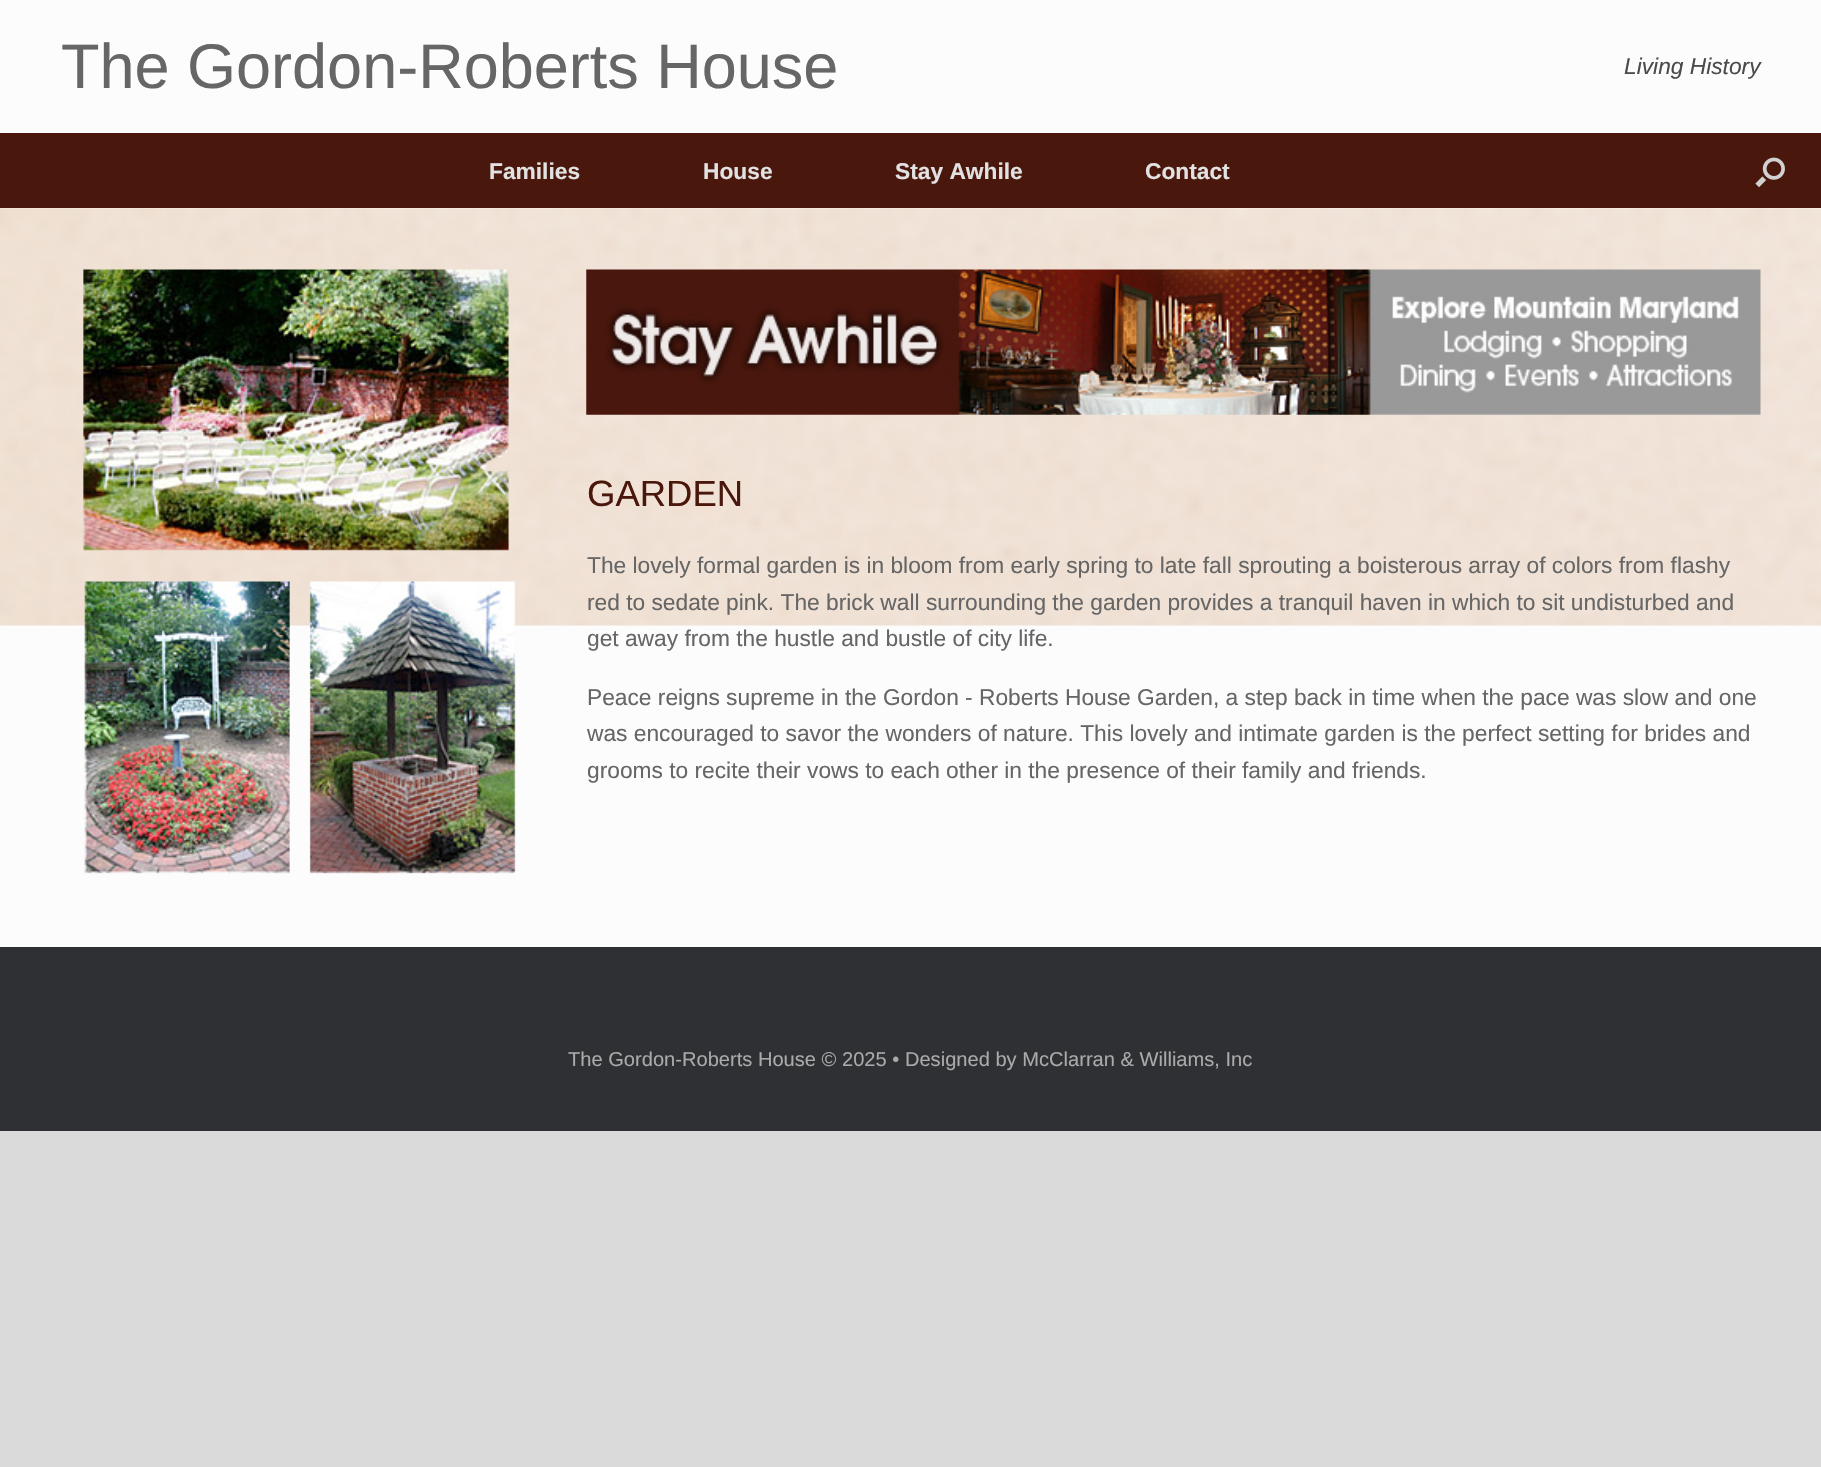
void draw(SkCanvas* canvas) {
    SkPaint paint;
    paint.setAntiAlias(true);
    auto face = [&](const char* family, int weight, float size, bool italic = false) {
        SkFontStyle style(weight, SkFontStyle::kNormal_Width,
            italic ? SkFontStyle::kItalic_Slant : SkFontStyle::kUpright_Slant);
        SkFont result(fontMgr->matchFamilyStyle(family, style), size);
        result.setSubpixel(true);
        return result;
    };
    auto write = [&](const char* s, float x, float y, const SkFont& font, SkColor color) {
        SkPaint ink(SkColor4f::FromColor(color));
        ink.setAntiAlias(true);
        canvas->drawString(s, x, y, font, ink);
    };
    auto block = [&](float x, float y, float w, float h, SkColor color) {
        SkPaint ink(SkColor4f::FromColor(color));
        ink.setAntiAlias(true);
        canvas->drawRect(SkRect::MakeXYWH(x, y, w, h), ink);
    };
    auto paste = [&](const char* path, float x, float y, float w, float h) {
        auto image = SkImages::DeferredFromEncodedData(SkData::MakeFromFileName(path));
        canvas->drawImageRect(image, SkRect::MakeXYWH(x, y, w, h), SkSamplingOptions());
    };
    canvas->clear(SkColorSetRGB(218, 218, 218));
    block(0, 0, 1821, 133, SkColorSetRGB(252, 252, 252));
    auto kFont1 = face("Liberation Sans", 400, 63);
    write("The Gordon-Roberts House", 61, 88, kFont1, SkColorSetRGB(102, 102, 102));
    auto kFont2 = face("Liberation Sans", 400, 22.75f, true);
    write("Living History", 1624, 74, kFont2, SkColorSetRGB(75, 75, 75));
    block(0, 133, 1821, 75, SkColorSetRGB(73, 23, 12));
    auto kFont3 = face("Liberation Sans", 700, 22.75f);
    write("Families", 489, 179, kFont3, SkColorSetRGB(226, 226, 226));
    write("House", 703, 179, kFont3, SkColorSetRGB(226, 226, 226));
    write("Stay Awhile", 895, 179, kFont3, SkColorSetRGB(226, 226, 226));
    write("Contact", 1145, 179, kFont3, SkColorSetRGB(226, 226, 226));
    paste("pic1.png", 1755, 157, 30, 31);
    block(0, 208, 1821, 739, SkColorSetRGB(252, 252, 252));
    paste("pic2.png", 0, 208, 1821, 418);
    paste("pic3.png", 83, 269, 433, 605);
    paste("pic4.png", 586, 269, 1175, 146);
    auto kFont4 = face("Liberation Sans", 400, 36.5f);
    write("GARDEN", 587, 506, kFont4, SkColorSetRGB(73, 23, 12));
    auto kFont5 = face("Liberation Sans", 400, 22.75f);
    write("The lovely formal garden is in bloom from early spring to late fall sprouting a boisterous array of colors from flashy", 587, 573, kFont5, SkColorSetRGB(102, 102, 102));
    write("red to sedate pink. The brick wall surrounding the garden provides a tranquil haven in which to sit undisturbed and", 587, 610, kFont5, SkColorSetRGB(102, 102, 102));
    write("get away from the hustle and bustle of city life.", 587, 646, kFont5, SkColorSetRGB(102, 102, 102));
    write("Peace reigns supreme in the Gordon - Roberts House Garden, a step back in time when the pace was slow and one", 587, 705, kFont5, SkColorSetRGB(102, 102, 102));
    write("was encouraged to savor the wonders of nature. This lovely and intimate garden is the perfect setting for brides and", 587, 741, kFont5, SkColorSetRGB(102, 102, 102));
    write("grooms to recite their vows to each other in the presence of their family and friends.", 587, 778, kFont5, SkColorSetRGB(102, 102, 102));
    block(0, 947, 1821, 184, SkColorSetRGB(47, 48, 51));
    auto kFont6 = face("Liberation Sans", 400, 20.1f);
    write("The Gordon-Roberts House © 2025 • Designed by McClarran & Williams, Inc", 568, 1066, kFont6, SkColorSetRGB(170, 170, 170));
}
